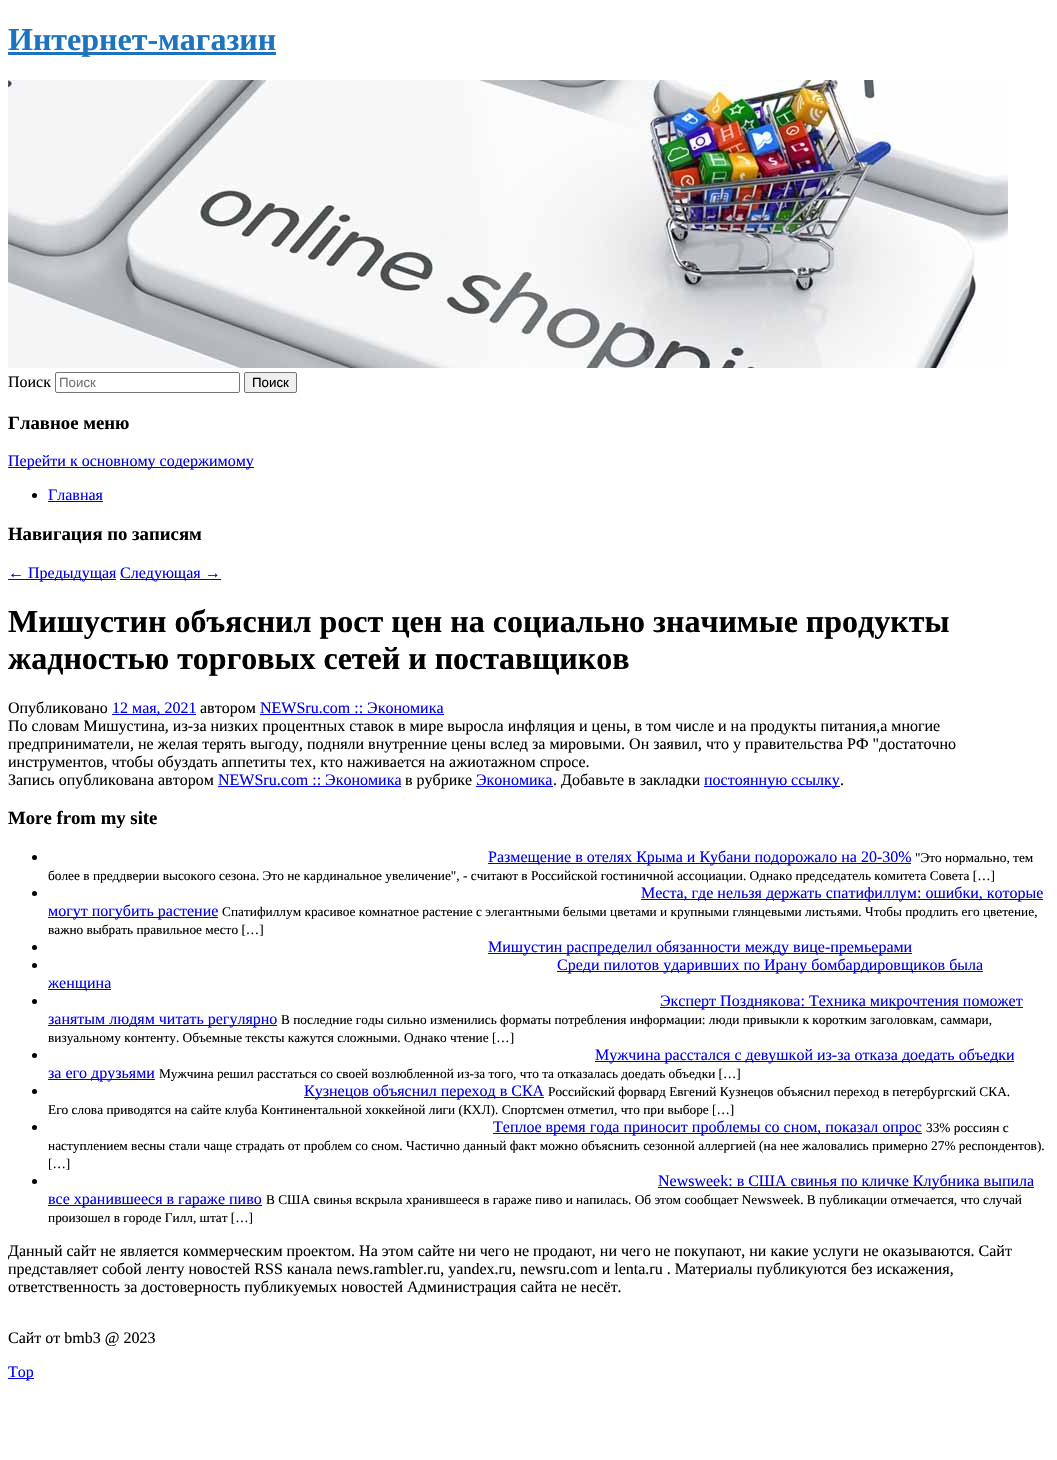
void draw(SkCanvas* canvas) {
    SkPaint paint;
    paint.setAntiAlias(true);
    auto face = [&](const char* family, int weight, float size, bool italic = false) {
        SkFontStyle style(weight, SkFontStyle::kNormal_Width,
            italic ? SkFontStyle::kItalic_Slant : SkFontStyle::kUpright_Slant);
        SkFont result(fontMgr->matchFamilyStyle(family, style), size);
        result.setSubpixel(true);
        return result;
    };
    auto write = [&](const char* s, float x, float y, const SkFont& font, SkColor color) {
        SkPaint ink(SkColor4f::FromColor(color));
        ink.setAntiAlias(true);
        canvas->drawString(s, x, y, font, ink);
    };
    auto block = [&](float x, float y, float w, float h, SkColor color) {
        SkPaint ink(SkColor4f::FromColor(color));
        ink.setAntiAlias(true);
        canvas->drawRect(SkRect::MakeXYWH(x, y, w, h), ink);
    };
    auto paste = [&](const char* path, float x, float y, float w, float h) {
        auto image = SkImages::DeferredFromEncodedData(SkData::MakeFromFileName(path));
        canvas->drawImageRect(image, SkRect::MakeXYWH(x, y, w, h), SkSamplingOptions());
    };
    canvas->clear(SK_ColorWHITE);
    block(8, 52, 268, 3, SkColorSetRGB(30, 115, 190));
    auto kFont1 = face("Liberation Serif", 700, 32);
    write("Интернет-магазин", 8, 50, kFont1, SkColorSetRGB(30, 115, 190));
    paste("pic1.png", 8, 80, 1000, 288);
    auto kFont2 = face("Liberation Serif", 400, 16);
    write("Поиск", 8, 387, kFont2, SK_ColorBLACK);
    paint.setStyle(SkPaint::kStroke_Style);
    paint.setStrokeWidth(1);
    paint.setColor(SkColorSetRGB(118, 118, 118));
    canvas->drawRoundRect(SkRect::MakeXYWH(55.5f, 372.5f, 184, 20), 1.5f, 1.5f, paint);
    auto kFont3 = face("Liberation Sans", 400, 13.33f);
    write("Поиск", 59, 387, kFont3, SkColorSetRGB(117, 117, 117));
    paint.setStyle(SkPaint::kFill_Style);
    paint.setColor(SkColorSetRGB(239, 239, 239));
    canvas->drawRoundRect(SkRect::MakeXYWH(244.5f, 372.5f, 52, 20), 1.5f, 1.5f, paint);
    paint.setStyle(SkPaint::kStroke_Style);
    paint.setColor(SkColorSetRGB(118, 118, 118));
    canvas->drawRoundRect(SkRect::MakeXYWH(244.5f, 372.5f, 52, 20), 1.5f, 1.5f, paint);
    write("Поиск", 252, 387, kFont3, SK_ColorBLACK);
    auto kFont4 = face("Liberation Serif", 700, 18.75f);
    write("Главное меню", 8, 429, kFont4, SK_ColorBLACK);
    block(8, 467, 246, 1, SkColorSetRGB(0, 0, 238));
    write("Перейти к основному содержимому", 8, 466, kFont2, SkColorSetRGB(0, 0, 238));
    paint.setStyle(SkPaint::kFill_Style);
    paint.setColor(SK_ColorBLACK);
    canvas->drawCircle(34.5f, 495.5f, 2.5f, paint);
    write("Главная", 48, 500, kFont2, SkColorSetRGB(0, 0, 238));
    block(48, 501, 55, 1, SkColorSetRGB(0, 0, 238));
    write("Навигация по записям", 8, 540, kFont4, SK_ColorBLACK);
    block(8, 579, 108, 1, SkColorSetRGB(0, 0, 238));
    write("← Предыдущая", 8, 578, kFont2, SkColorSetRGB(0, 0, 238));
    block(120, 579, 101, 1, SkColorSetRGB(0, 0, 238));
    write("Следующая →", 120, 578, kFont2, SkColorSetRGB(0, 0, 238));
    write("Мишустин объяснил рост цен на социально значимые продукты", 8, 632, kFont1, SK_ColorBLACK);
    write("жадностью торговых сетей и поставщиков", 8, 669, kFont1, SK_ColorBLACK);
    write("Опубликовано", 8, 713, kFont2, SK_ColorBLACK);
    block(112, 714, 84, 1, SkColorSetRGB(0, 0, 238));
    write("12 мая, 2021", 112, 713, kFont2, SkColorSetRGB(0, 0, 238));
    write("автором", 200, 713, kFont2, SK_ColorBLACK);
    block(260, 714, 184, 1, SkColorSetRGB(0, 0, 238));
    write("NEWSru.com :: Экономика", 260, 713, kFont2, SkColorSetRGB(0, 0, 238));
    write("По словам Мишустина, из-за низких процентных ставок в мире выросла инфляция и цены, в том числе и на продукты питания,а многие", 8, 731, kFont2, SK_ColorBLACK);
    write("предприниматели, не желая терять выгоду, подняли внутренние цены вслед за мировыми. Он заявил, что у правительства РФ \"достаточно", 8, 749, kFont2, SK_ColorBLACK);
    write("инструментов, чтобы обуздать аппетиты тех, кто наживается на ажиотажном спросе.", 8, 767, kFont2, SK_ColorBLACK);
    write("Запись опубликована автором", 8, 785, kFont2, SK_ColorBLACK);
    write("NEWSru.com :: Экономика", 218, 785, kFont2, SkColorSetRGB(0, 0, 238));
    block(218, 786, 183, 1, SkColorSetRGB(0, 0, 238));
    write("в рубрике", 405, 785, kFont2, SK_ColorBLACK);
    write("Экономика", 476, 785, kFont2, SkColorSetRGB(0, 0, 238));
    block(476, 786, 77, 1, SkColorSetRGB(0, 0, 238));
    write(". Добавьте в закладки", 553, 785, kFont2, SK_ColorBLACK);
    block(704, 786, 136, 1, SkColorSetRGB(0, 0, 238));
    write("постоянную ссылку", 704, 785, kFont2, SkColorSetRGB(0, 0, 238));
    write(".", 840, 785, kFont2, SK_ColorBLACK);
    write("More from my site", 8, 824, kFont4, SK_ColorBLACK);
    canvas->drawCircle(34.5f, 857.5f, 2.5f, paint);
    block(488, 863, 423, 1, SkColorSetRGB(0, 0, 238));
    write("Размещение в отелях Крыма и Кубани подорожало на 20-30%", 488, 862, kFont2, SkColorSetRGB(0, 0, 238));
    auto kFont5 = face("Liberation Serif", 400, 13.33f);
    write("\"Это нормально, тем", 915, 862, kFont5, SK_ColorBLACK);
    write("более в преддверии высокого сезона. Это не кардинальное увеличение\", - считают в Российской гостиничной ассоциации. Однако председатель комитета Совета […]", 48, 880, kFont5, SK_ColorBLACK);
    canvas->drawCircle(34.5f, 893.5f, 2.5f, paint);
    block(641, 899, 402, 1, SkColorSetRGB(0, 0, 238));
    write("Места, где нельзя держать спатифиллум: ошибки, которые", 641, 898, kFont2, SkColorSetRGB(0, 0, 238));
    block(48, 917, 170, 1, SkColorSetRGB(0, 0, 238));
    write("могут погубить растение", 48, 916, kFont2, SkColorSetRGB(0, 0, 238));
    write("Спатифиллум красивое комнатное растение с элегантными белыми цветами и крупными глянцевыми листьями. Чтобы продлить его цветение,", 222, 916, kFont5, SK_ColorBLACK);
    write("важно выбрать правильное место […]", 48, 934, kFont5, SK_ColorBLACK);
    canvas->drawCircle(34.5f, 947.5f, 2.5f, paint);
    block(488, 953, 424, 1, SkColorSetRGB(0, 0, 238));
    write("Мишустин распределил обязанности между вице-премьерами", 488, 952, kFont2, SkColorSetRGB(0, 0, 238));
    canvas->drawCircle(34.5f, 965.5f, 2.5f, paint);
    block(557, 971, 426, 1, SkColorSetRGB(0, 0, 238));
    write("Среди пилотов ударивших по Ирану бомбардировщиков была", 557, 970, kFont2, SkColorSetRGB(0, 0, 238));
    block(48, 989, 63, 1, SkColorSetRGB(0, 0, 238));
    write("женщина", 48, 988, kFont2, SkColorSetRGB(0, 0, 238));
    canvas->drawCircle(34.5f, 1001.5f, 2.5f, paint);
    block(660, 1007, 363, 1, SkColorSetRGB(0, 0, 238));
    write("Эксперт Позднякова: Техника микрочтения поможет", 660, 1006, kFont2, SkColorSetRGB(0, 0, 238));
    block(48, 1025, 229, 1, SkColorSetRGB(0, 0, 238));
    write("занятым людям читать регулярно", 48, 1024, kFont2, SkColorSetRGB(0, 0, 238));
    write("В последние годы сильно изменились форматы потребления информации: люди привыкли к коротким заголовкам, саммари,", 281, 1024, kFont5, SK_ColorBLACK);
    write("визуальному контенту. Объемные тексты кажутся сложными. Однако чтение […]", 48, 1042, kFont5, SK_ColorBLACK);
    canvas->drawCircle(34.5f, 1055.5f, 2.5f, paint);
    block(595, 1061, 419, 1, SkColorSetRGB(0, 0, 238));
    write("Мужчина расстался с девушкой из-за отказа доедать объедки", 595, 1060, kFont2, SkColorSetRGB(0, 0, 238));
    block(48, 1079, 107, 1, SkColorSetRGB(0, 0, 238));
    write("за его друзьями", 48, 1078, kFont2, SkColorSetRGB(0, 0, 238));
    write("Мужчина решил расстаться со своей возлюбленной из-за того, что та отказалась доедать объедки […]", 159, 1078, kFont5, SK_ColorBLACK);
    canvas->drawCircle(34.5f, 1091.5f, 2.5f, paint);
    block(304, 1097, 240, 1, SkColorSetRGB(0, 0, 238));
    write("Кузнецов объяснил переход в СКА", 304, 1096, kFont2, SkColorSetRGB(0, 0, 238));
    write("Российский форвард Евгений Кузнецов объяснил переход в петербургский СКА.", 548, 1096, kFont5, SK_ColorBLACK);
    write("Его слова приводятся на сайте клуба Континентальной хоккейной лиги (КХЛ). Спортсмен отметил, что при выборе […]", 48, 1114, kFont5, SK_ColorBLACK);
    canvas->drawCircle(34.5f, 1127.5f, 2.5f, paint);
    block(493, 1133, 429, 1, SkColorSetRGB(0, 0, 238));
    write("Теплое время года приносит проблемы со сном, показал опрос", 493, 1132, kFont2, SkColorSetRGB(0, 0, 238));
    write("33% россиян с", 926, 1132, kFont5, SK_ColorBLACK);
    write("наступлением весны стали чаще страдать от проблем со сном. Частично данный факт можно объяснить сезонной аллергией (на нее жаловались примерно 27% респондентов).", 48, 1150, kFont5, SK_ColorBLACK);
    write("[…]", 48, 1168, kFont5, SK_ColorBLACK);
    canvas->drawCircle(34.5f, 1181.5f, 2.5f, paint);
    block(658, 1187, 376, 1, SkColorSetRGB(0, 0, 238));
    write("Newsweek: в США свинья по кличке Клубника выпила", 658, 1186, kFont2, SkColorSetRGB(0, 0, 238));
    block(48, 1205, 214, 1, SkColorSetRGB(0, 0, 238));
    write("все хранившееся в гараже пиво", 48, 1204, kFont2, SkColorSetRGB(0, 0, 238));
    write("В США свинья вскрыла хранившееся в гараже пиво и напилась. Об этом сообщает Newsweek. В публикации отмечается, что случай", 266, 1204, kFont5, SK_ColorBLACK);
    write("произошел в городе Гилл, штат […]", 48, 1222, kFont5, SK_ColorBLACK);
    write("Данный сайт не является коммерческим проектом. На этом сайте ни чего не продают, ни чего не покупают, ни какие услуги не оказываются. Сайт", 8, 1256, kFont2, SK_ColorBLACK);
    write("представляет собой ленту новостей RSS канала news.rambler.ru, yandex.ru, newsru.com и lenta.ru . Материалы публикуются без искажения,", 8, 1274, kFont2, SK_ColorBLACK);
    write("ответственность за достоверность публикуемых новостей Администрация сайта не несёт.", 8, 1292, kFont2, SK_ColorBLACK);
    write("Сайт от bmb3 @ 2023", 8, 1343, kFont2, SK_ColorBLACK);
    block(8, 1378, 26, 1, SkColorSetRGB(0, 0, 238));
    write("Top", 8, 1377, kFont2, SkColorSetRGB(0, 0, 238));
}
